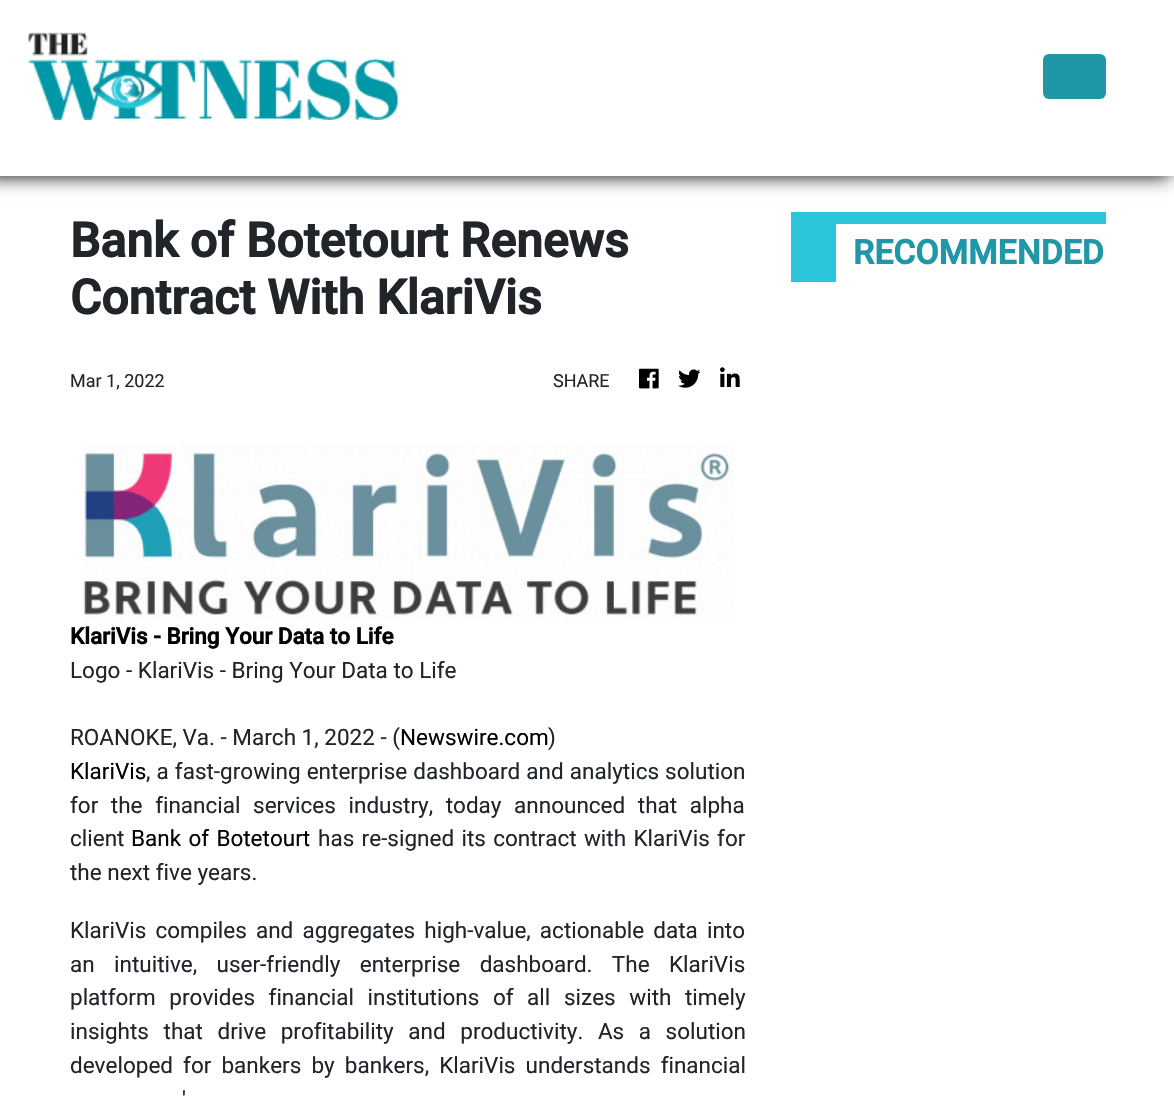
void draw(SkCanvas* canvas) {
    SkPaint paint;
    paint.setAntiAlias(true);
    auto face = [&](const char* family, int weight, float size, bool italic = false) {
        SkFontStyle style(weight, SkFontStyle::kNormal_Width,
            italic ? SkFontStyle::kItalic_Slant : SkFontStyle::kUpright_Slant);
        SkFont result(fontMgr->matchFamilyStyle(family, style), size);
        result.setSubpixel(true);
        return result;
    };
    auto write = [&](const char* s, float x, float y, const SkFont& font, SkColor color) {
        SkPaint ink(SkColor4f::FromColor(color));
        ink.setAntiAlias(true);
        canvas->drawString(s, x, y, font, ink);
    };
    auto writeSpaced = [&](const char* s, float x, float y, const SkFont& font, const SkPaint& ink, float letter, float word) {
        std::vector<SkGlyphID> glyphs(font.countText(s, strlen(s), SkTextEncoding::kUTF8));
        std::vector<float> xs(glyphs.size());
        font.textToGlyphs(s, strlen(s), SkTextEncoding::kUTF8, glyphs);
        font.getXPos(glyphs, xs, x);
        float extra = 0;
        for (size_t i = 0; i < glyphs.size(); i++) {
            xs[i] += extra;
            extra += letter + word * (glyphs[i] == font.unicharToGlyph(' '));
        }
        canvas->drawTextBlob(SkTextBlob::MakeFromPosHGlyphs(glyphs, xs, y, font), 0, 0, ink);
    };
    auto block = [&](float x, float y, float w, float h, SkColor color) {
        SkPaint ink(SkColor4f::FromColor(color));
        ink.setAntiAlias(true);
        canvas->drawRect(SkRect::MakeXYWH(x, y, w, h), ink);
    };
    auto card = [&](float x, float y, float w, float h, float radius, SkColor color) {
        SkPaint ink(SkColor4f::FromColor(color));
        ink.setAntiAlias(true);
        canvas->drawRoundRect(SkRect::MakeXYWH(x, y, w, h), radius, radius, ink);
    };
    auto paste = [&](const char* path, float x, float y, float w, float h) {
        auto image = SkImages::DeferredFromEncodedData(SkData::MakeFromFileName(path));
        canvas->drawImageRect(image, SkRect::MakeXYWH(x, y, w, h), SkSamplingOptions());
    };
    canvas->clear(SK_ColorWHITE);
    paint.setColor(SK_ColorBLACK);
    paint.setMaskFilter(SkMaskFilter::MakeBlur(kNormal_SkBlurStyle, 9));
    canvas->drawRect(SkRect::MakeXYWH(-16, -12, 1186, 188), paint);
    paint.setMaskFilter(nullptr);
    block(0, 0, 1174, 176, SK_ColorWHITE);
    paste("pic1.png", 28, 32, 370, 88);
    card(1043, 54, 63, 45, 6, SkColorSetRGB(31, 151, 167));
    auto kFont1 = face("Roboto", 700, 48);
    write("Bank of Botetourt Renews", 70, 257, kFont1, SkColorSetRGB(33, 37, 41));
    write("Contract With KlariVis", 70, 314, kFont1, SkColorSetRGB(33, 37, 41));
    auto kFont2 = face("Roboto", 400, 18);
    write("Mar 1, 2022", 70, 387, kFont2, SkColorSetRGB(33, 37, 41));
    write("SHARE", 553, 387, kFont2, SkColorSetRGB(33, 37, 41));
    paste("pic2.png", 639, 368, 20, 21);
    paste("pic3.png", 678, 369, 23, 19);
    paste("pic4.png", 720, 367, 20, 20);
    paste("pic5.png", 81, 444, 653, 176);
    auto kFont3 = face("Roboto", 700, 22.5f);
    write("KlariVis - Bring Your Data to Life", 70, 644, kFont3, SK_ColorBLACK);
    auto kFont4 = face("Roboto", 400, 22.5f);
    write("Logo - KlariVis - Bring Your Data to Life", 70, 678, kFont4, SkColorSetRGB(33, 37, 41));
    write("ROANOKE, Va. - March 1, 2022 - (", 70, 745, kFont4, SkColorSetRGB(33, 37, 41));
    write("Newswire.com", 400, 745, kFont4, SK_ColorBLACK);
    write(")", 548, 745, kFont4, SkColorSetRGB(33, 37, 41));
    write("KlariVis", 70, 779, kFont4, SK_ColorBLACK);
    paint.setColor(SkColorSetRGB(33, 37, 41));
    writeSpaced(", a fast-growing enterprise dashboard and analytics solution", 146, 779, kFont4, paint, 0, 0.5f);
    writeSpaced("for the financial services industry, today announced that alpha", 70, 813, kFont4, paint, 0, 7);
    write("client", 70, 846, kFont4, SkColorSetRGB(33, 37, 41));
    paint.setColor(SK_ColorBLACK);
    writeSpaced("Bank of Botetourt", 131, 846, kFont4, paint, 0, 1.75f);
    paint.setColor(SkColorSetRGB(33, 37, 41));
    writeSpaced("has re-signed its contract with KlariVis for", 318, 846, kFont4, paint, 0, 1.75f);
    write("the next five years.", 70, 880, kFont4, SkColorSetRGB(33, 37, 41));
    writeSpaced("KlariVis compiles and aggregates high-value, actionable data into", 70, 938, kFont4, paint, 0, 3.5f);
    writeSpaced("an intuitive, user-friendly enterprise dashboard. The KlariVis", 70, 972, kFont4, paint, 0, 13.75f);
    writeSpaced("platform provides financial institutions of all sizes with timely", 70, 1005, kFont4, paint, 0, 8);
    writeSpaced("insights that drive profitability and productivity. As a solution", 70, 1039, kFont4, paint, 0, 9);
    writeSpaced("developed for bankers by bankers, KlariVis understands financial", 70, 1073, kFont4, paint, 0, 4.5f);
    writeSpaced("'", 182, 1107, kFont4, paint, 0, 8);
    block(836, 212, 270, 12, SkColorSetRGB(44, 198, 218));
    block(791, 212, 45, 70, SkColorSetRGB(44, 198, 218));
    auto kFont5 = face("Roboto", 700, 33.75f);
    write("RECOMMENDED", 853, 264, kFont5, SkColorSetRGB(32, 151, 167));
}
